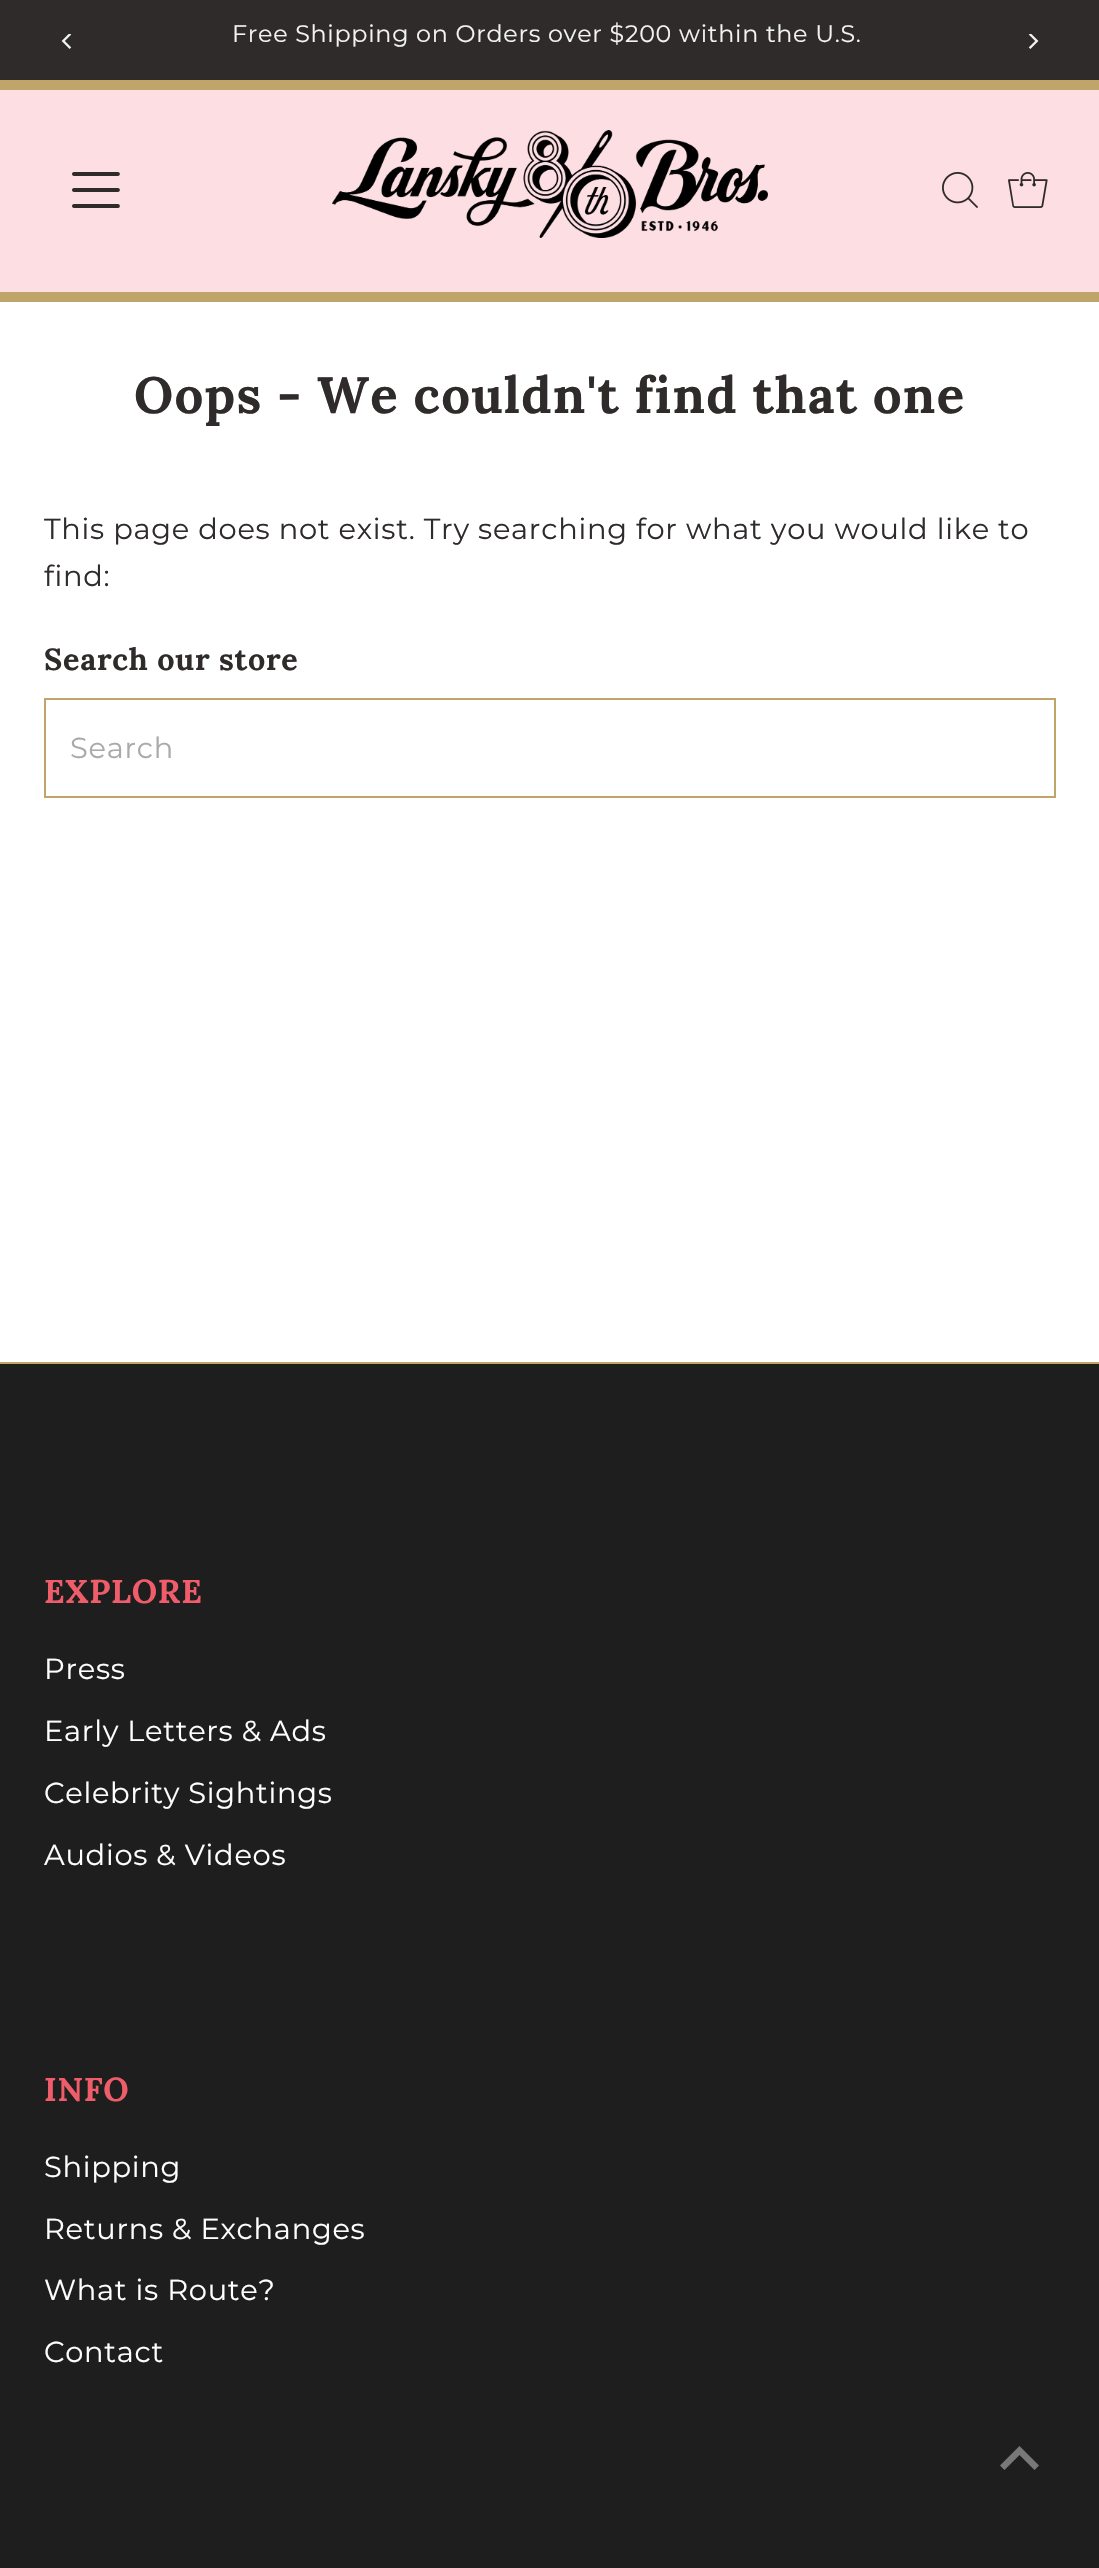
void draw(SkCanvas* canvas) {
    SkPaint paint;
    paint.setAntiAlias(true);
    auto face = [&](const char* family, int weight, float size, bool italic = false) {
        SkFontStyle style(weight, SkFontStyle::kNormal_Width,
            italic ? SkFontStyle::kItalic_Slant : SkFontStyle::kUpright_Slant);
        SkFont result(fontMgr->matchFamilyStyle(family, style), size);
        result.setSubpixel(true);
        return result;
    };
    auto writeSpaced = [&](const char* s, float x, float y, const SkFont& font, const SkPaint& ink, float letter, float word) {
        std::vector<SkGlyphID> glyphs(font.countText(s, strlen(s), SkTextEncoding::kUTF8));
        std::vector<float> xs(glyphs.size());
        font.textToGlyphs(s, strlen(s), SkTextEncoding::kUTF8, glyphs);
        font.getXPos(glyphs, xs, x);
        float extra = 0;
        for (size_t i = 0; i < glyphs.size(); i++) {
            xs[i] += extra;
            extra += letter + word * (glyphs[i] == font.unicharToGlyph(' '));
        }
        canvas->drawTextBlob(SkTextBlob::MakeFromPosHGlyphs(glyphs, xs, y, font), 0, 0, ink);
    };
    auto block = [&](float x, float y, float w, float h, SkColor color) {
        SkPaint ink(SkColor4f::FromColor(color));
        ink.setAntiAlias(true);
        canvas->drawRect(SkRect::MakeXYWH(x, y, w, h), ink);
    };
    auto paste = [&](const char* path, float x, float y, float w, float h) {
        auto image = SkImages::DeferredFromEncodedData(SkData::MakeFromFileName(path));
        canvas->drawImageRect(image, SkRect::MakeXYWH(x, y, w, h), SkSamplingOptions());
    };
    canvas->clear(SK_ColorWHITE);
    block(0, 0, 1099, 80, SkColorSetRGB(48, 43, 43));
    paste("pic1.png", 61, 34, 11, 15);
    auto kFont1 = face("Montserrat", 400, 23.8f);
    paint.setColor(SkColorSetRGB(242, 243, 244));
    writeSpaced("Free Shipping on Orders over $200 within the U.S.", 232, 42, kFont1, paint, 0.72f, 0);
    paste("pic2.png", 1028, 34, 11, 15);
    block(0, 90, 1099, 202, SkColorSetRGB(252, 222, 227));
    block(0, 80, 1099, 10, SkColorSetRGB(191, 165, 106));
    block(0, 292, 1099, 10, SkColorSetRGB(191, 165, 106));
    paste("pic3.png", 72, 172, 48, 36);
    paste("pic4.png", 332, 130, 436, 108);
    paste("pic5.png", 942, 172, 36, 36);
    paste("pic6.png", 1008, 172, 40, 36);
    auto kFont2 = face("Lora", 700, 51);
    paint.setColor(SkColorSetRGB(48, 43, 43));
    writeSpaced("Oops - We couldn't find that one", 134, 413, kFont2, paint, 1.25f, 0);
    auto kFont3 = face("Montserrat", 400, 28.9f);
    writeSpaced("This page does not exist. Try searching for what you would like to", 44, 539, kFont3, paint, 0.72f, 0);
    writeSpaced("find:", 44, 586, kFont3, paint, 0.72f, 0);
    auto kFont4 = face("Lora", 700, 30.5f);
    writeSpaced("Search our store", 44, 670, kFont4, paint, 0.75f, 0);
    paint.setStyle(SkPaint::kStroke_Style);
    paint.setStrokeWidth(2);
    paint.setColor(SkColorSetRGB(191, 165, 106));
    canvas->drawRect(SkRect::MakeXYWH(45, 699, 1010, 98), paint);
    paint.setStyle(SkPaint::kFill_Style);
    paint.setColor(SkColorSetRGB(170, 170, 170));
    writeSpaced("Search", 70, 758, kFont3, paint, 0.72f, 0);
    block(0, 1364, 1099, 1204, SkColorSetRGB(30, 30, 30));
    block(0, 1362, 1099, 2, SkColorSetRGB(191, 165, 106));
    auto kFont5 = face("Lora", 700, 33);
    paint.setColor(SkColorSetRGB(239, 93, 106));
    writeSpaced("EXPLORE", 44, 1603, kFont5, paint, 0.75f, 0);
    paint.setColor(SK_ColorWHITE);
    writeSpaced("Press", 44, 1679, kFont3, paint, 0.72f, 0);
    writeSpaced("Early Letters & Ads", 44, 1741, kFont3, paint, 0.72f, 0);
    writeSpaced("Celebrity Sightings", 44, 1803, kFont3, paint, 0.72f, 0);
    writeSpaced("Audios & Videos", 44, 1865, kFont3, paint, 0.72f, 0);
    paint.setColor(SkColorSetRGB(239, 93, 106));
    writeSpaced("INFO", 44, 2101, kFont5, paint, 0.75f, 0);
    paint.setColor(SK_ColorWHITE);
    writeSpaced("Shipping", 44, 2177, kFont3, paint, 0.72f, 0);
    writeSpaced("Returns & Exchanges", 44, 2239, kFont3, paint, 0.72f, 0);
    writeSpaced("What is Route?", 44, 2300, kFont3, paint, 0.72f, 0);
    writeSpaced("Contact", 44, 2362, kFont3, paint, 0.72f, 0);
    paint.setColor(SkColorSetRGB(120, 120, 120));
    canvas->drawPath(SkPathBuilder().moveTo(1019.5f, 2446).lineTo(1000, 2465.5f).lineTo(1004.5f, 2470).lineTo(1019.5f, 2455).lineTo(1034.5f, 2470).lineTo(1039, 2465.5f).close().detach(), paint);
}
